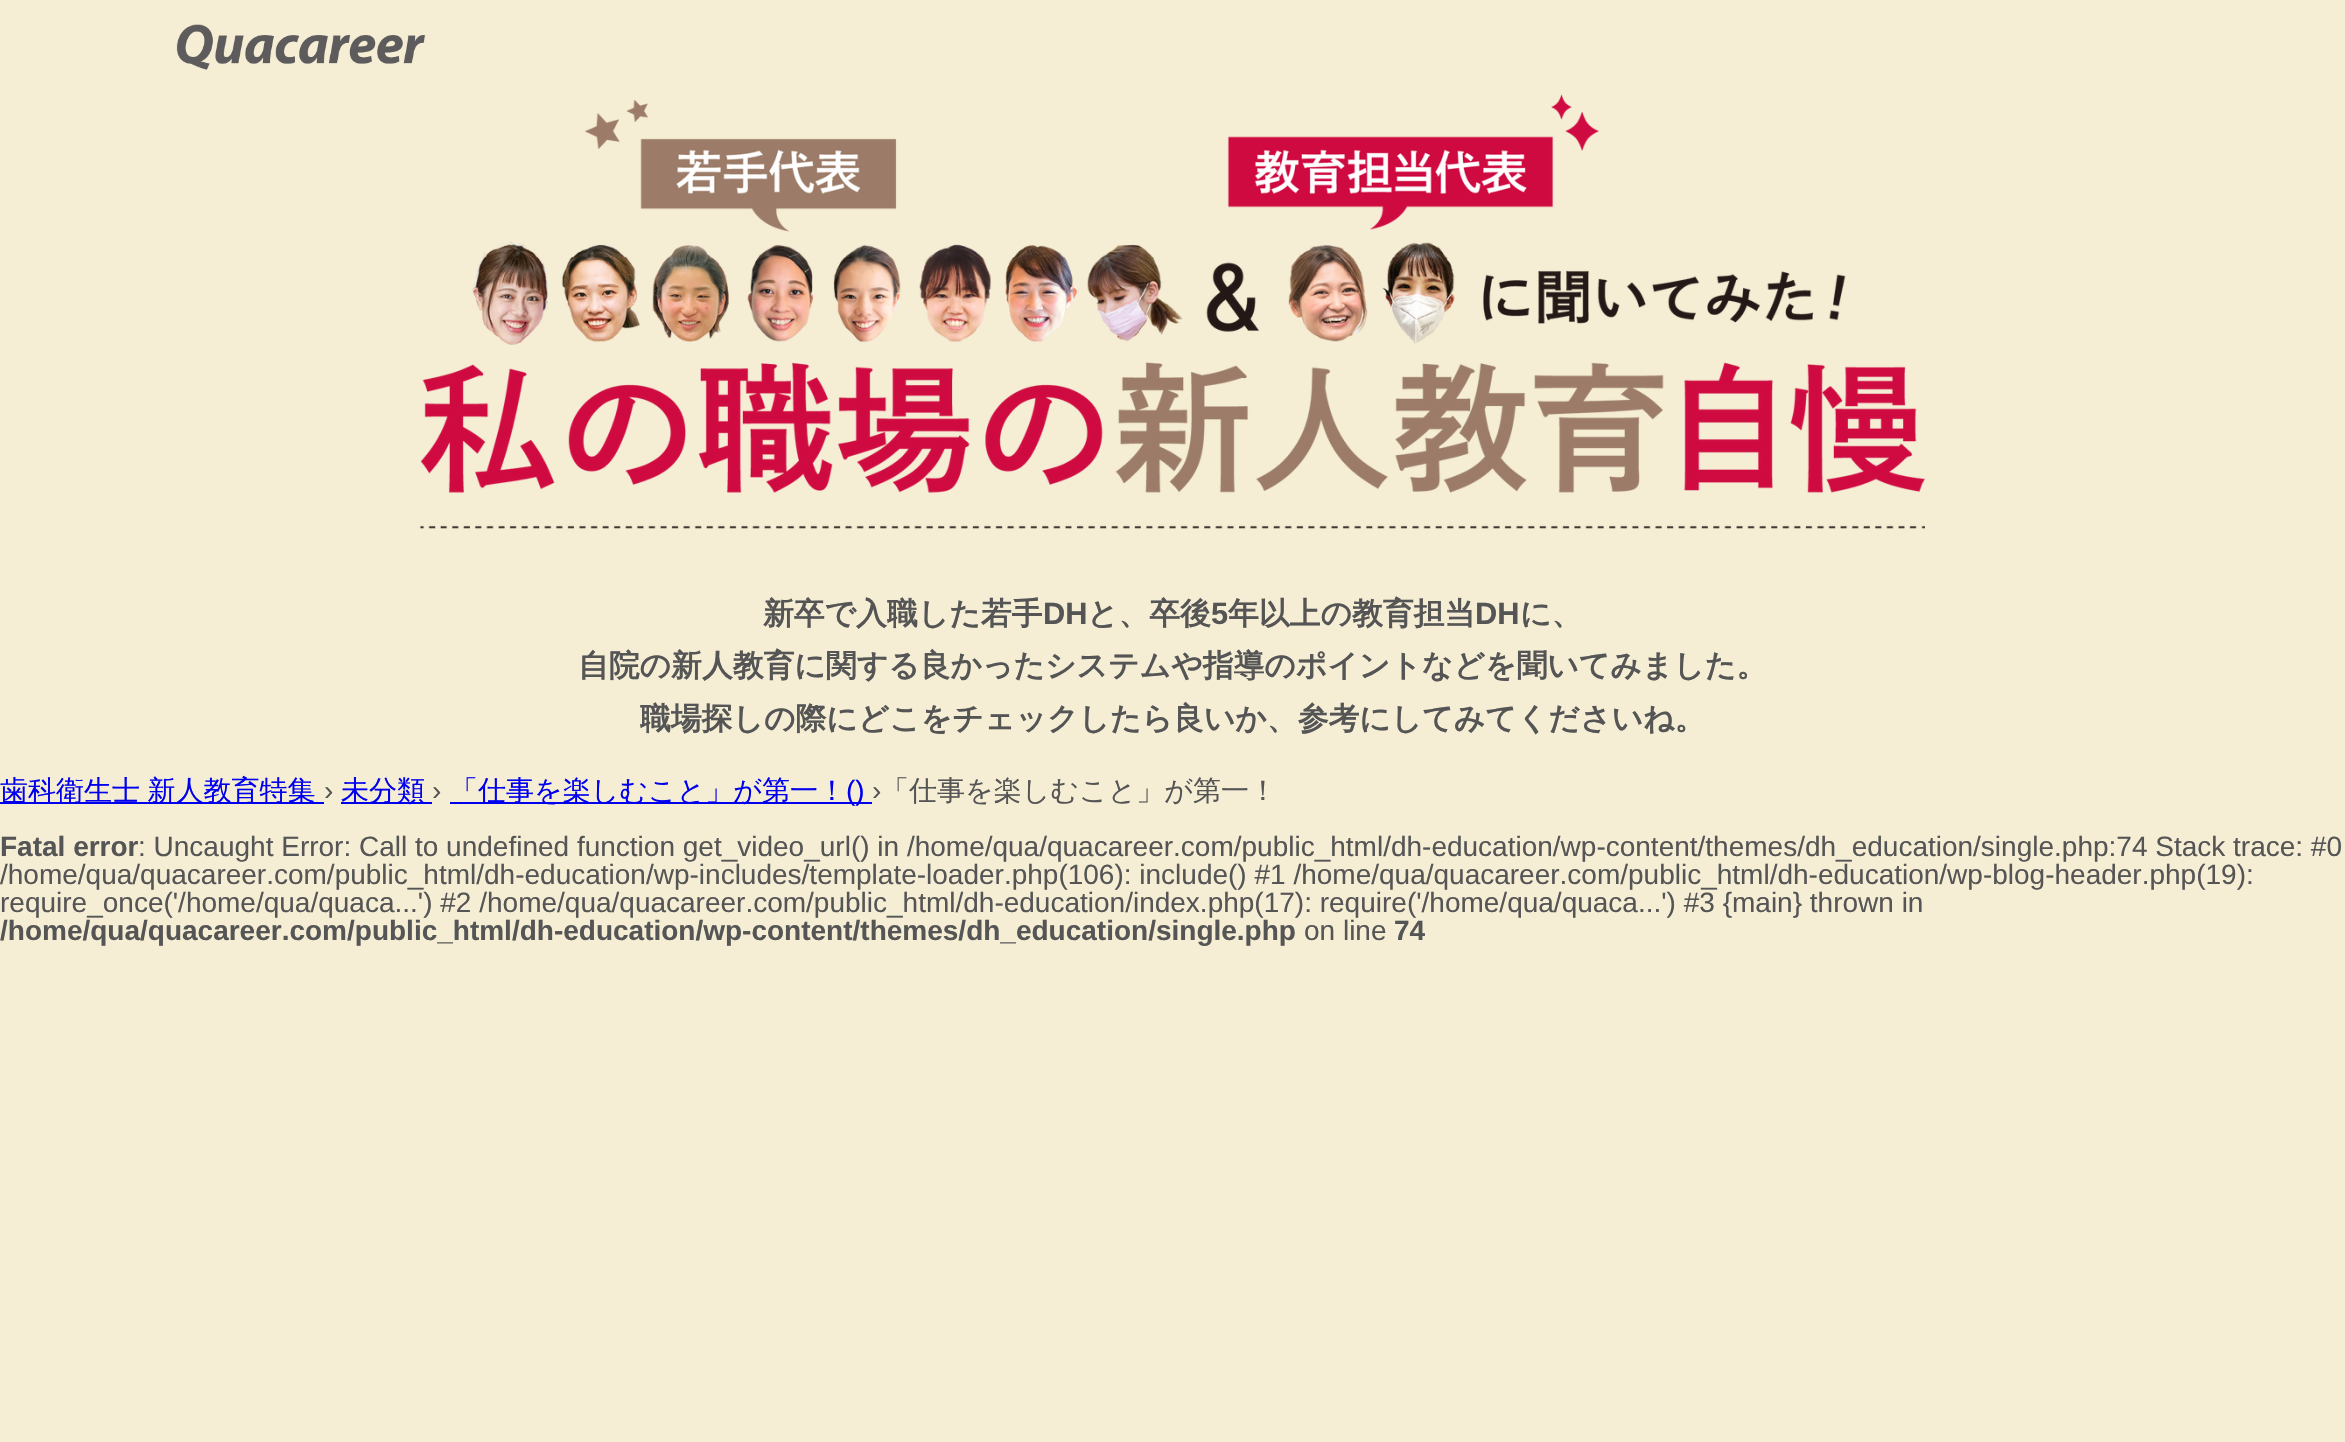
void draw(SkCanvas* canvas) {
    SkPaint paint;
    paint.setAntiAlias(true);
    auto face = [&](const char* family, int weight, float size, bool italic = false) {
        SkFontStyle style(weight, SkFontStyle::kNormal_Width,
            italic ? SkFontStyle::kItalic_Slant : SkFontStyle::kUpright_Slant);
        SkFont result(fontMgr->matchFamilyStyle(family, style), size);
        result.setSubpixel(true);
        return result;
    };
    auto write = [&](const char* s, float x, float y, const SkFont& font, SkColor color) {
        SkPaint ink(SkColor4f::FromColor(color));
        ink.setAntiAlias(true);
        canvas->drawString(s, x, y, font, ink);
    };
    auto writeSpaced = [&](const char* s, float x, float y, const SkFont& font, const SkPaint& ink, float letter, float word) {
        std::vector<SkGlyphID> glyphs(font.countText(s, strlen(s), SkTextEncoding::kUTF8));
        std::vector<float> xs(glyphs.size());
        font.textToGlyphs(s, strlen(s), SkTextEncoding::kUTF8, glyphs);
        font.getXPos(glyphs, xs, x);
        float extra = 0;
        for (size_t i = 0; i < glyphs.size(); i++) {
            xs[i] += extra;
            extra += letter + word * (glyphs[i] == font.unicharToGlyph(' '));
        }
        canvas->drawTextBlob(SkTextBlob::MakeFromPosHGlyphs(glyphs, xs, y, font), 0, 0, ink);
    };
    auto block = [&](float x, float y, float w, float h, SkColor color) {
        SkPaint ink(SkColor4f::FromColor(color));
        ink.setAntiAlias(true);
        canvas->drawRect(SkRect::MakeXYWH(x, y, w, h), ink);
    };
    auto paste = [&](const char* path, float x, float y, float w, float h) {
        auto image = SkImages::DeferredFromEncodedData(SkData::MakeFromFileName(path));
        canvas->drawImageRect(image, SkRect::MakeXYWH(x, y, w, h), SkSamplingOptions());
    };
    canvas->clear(SkColorSetRGB(245, 238, 213));
    paste("pic1.png", 176, 24, 250, 46);
    paste("pic2.png", 420, 94, 1505, 435);
    auto kFont1 = face("WenQuanYi Zen Hei", 700, 30.8f);
    write("新卒で入職した若手", 763, 624, kFont1, SkColorSetRGB(85, 85, 85));
    auto kFont2 = face("Liberation Sans", 700, 30.8f);
    write("DH", 1043, 624, kFont2, SkColorSetRGB(85, 85, 85));
    write("と、卒後", 1087, 624, kFont1, SkColorSetRGB(85, 85, 85));
    write("5", 1211, 624, kFont2, SkColorSetRGB(85, 85, 85));
    write("年以上の教育担当", 1228, 624, kFont1, SkColorSetRGB(85, 85, 85));
    write("DH", 1475, 624, kFont2, SkColorSetRGB(85, 85, 85));
    write("に、", 1520, 624, kFont1, SkColorSetRGB(85, 85, 85));
    write("自院の新人教育に関する良かったシステムや指導のポイントなどを聞いてみました。", 578, 676, kFont1, SkColorSetRGB(85, 85, 85));
    write("職場探しの際にどこをチェックしたら良いか、参考にしてみてくださいね。", 640, 729, kFont1, SkColorSetRGB(85, 85, 85));
    block(0, 802, 324, 2, SkColorSetRGB(0, 0, 238));
    auto kFont3 = face("WenQuanYi Zen Hei", 500, 28);
    paint.setColor(SkColorSetRGB(0, 0, 238));
    writeSpaced("歯科衛生士 新人教育特集", 0, 800, kFont3, paint, 0, -1);
    auto kFont4 = face("Liberation Sans", 400, 28);
    write("›", 324, 800, kFont4, SkColorSetRGB(85, 85, 85));
    block(341, 802, 91, 2, SkColorSetRGB(0, 0, 238));
    write("未分類", 341, 800, kFont3, SkColorSetRGB(0, 0, 238));
    write("›", 432, 800, kFont4, SkColorSetRGB(85, 85, 85));
    block(450, 802, 422, 2, SkColorSetRGB(0, 0, 238));
    write("「仕事を楽しむこと」が第一！", 450, 800, kFont3, SkColorSetRGB(0, 0, 238));
    write("()", 846, 800, kFont4, SkColorSetRGB(0, 0, 238));
    write("›", 872, 800, kFont4, SkColorSetRGB(85, 85, 85));
    write("「仕事を楽しむこと」が第一！", 881, 800, kFont3, SkColorSetRGB(85, 85, 85));
    auto kFont5 = face("Liberation Sans", 700, 28);
    write("Fatal error", 0, 856, kFont5, SkColorSetRGB(85, 85, 85));
    write(": Uncaught Error: Call to undefined function get_video_url() in /home/qua/quacareer.com/public_html/dh-education/wp-content/themes/dh_education/single.php:74 Stack trace: #0", 138, 856, kFont4, SkColorSetRGB(85, 85, 85));
    write("/home/qua/quacareer.com/public_html/dh-education/wp-includes/template-loader.php(106): include() #1 /home/qua/quacareer.com/public_html/dh-education/wp-blog-header.php(19):", 0, 884, kFont4, SkColorSetRGB(85, 85, 85));
    write("require_once('/home/qua/quaca...') #2 /home/qua/quacareer.com/public_html/dh-education/index.php(17): require('/home/qua/quaca...') #3 {main} thrown in", 0, 912, kFont4, SkColorSetRGB(85, 85, 85));
    write("/home/qua/quacareer.com/public_html/dh-education/wp-content/themes/dh_education/single.php", 0, 940, kFont5, SkColorSetRGB(85, 85, 85));
    write("on line", 1304, 940, kFont4, SkColorSetRGB(85, 85, 85));
    write("74", 1394, 940, kFont5, SkColorSetRGB(85, 85, 85));
}
